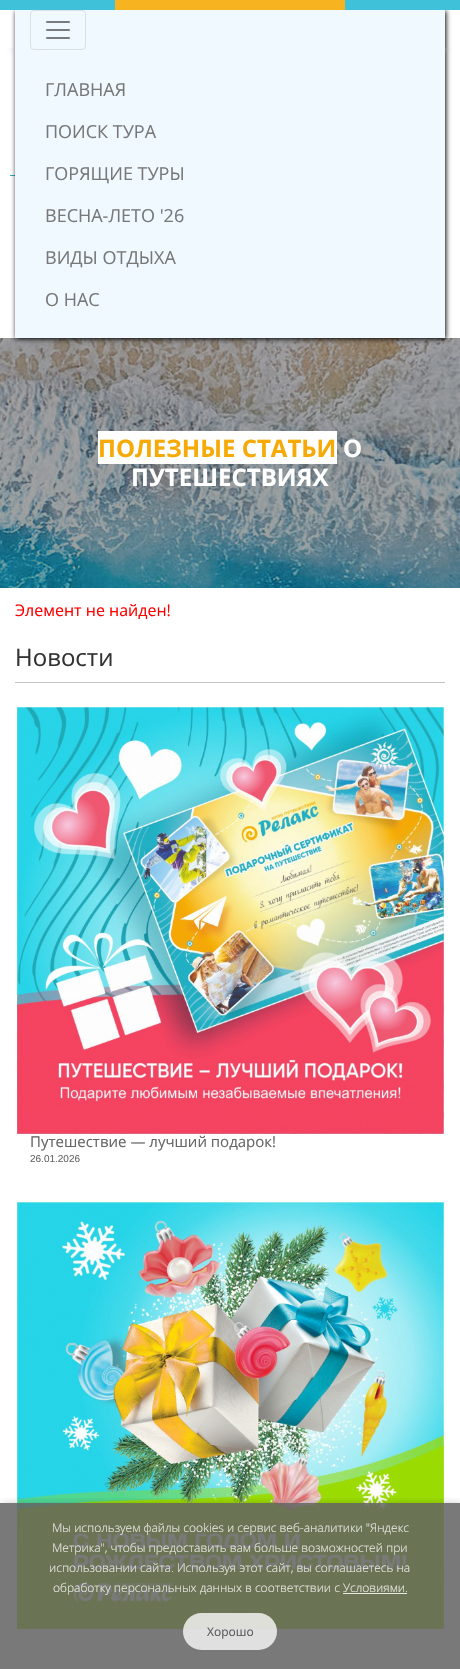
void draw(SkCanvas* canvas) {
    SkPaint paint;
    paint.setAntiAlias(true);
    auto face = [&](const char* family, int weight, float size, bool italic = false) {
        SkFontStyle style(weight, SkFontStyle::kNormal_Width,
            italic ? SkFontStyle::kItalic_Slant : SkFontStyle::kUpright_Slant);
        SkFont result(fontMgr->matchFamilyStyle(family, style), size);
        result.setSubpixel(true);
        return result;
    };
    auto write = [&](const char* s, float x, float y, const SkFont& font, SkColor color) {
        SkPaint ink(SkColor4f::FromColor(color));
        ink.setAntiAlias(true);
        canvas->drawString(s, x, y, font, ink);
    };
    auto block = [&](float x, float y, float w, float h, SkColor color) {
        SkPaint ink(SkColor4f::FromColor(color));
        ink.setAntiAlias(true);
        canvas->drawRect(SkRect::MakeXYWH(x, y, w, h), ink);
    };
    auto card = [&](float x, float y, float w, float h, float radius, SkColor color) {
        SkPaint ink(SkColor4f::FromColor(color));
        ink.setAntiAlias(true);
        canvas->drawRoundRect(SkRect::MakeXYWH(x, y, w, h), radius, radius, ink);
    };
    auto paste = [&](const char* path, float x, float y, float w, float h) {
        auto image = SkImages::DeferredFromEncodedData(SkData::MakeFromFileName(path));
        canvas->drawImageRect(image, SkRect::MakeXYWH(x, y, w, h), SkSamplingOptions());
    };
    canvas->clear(SK_ColorWHITE);
    block(10, 175, 5, 1, SkColorSetRGB(39, 176, 199));
    paste("pic2.png", 0, 338, 460, 250);
    paint.setColor(SK_ColorBLACK);
    paint.setMaskFilter(SkMaskFilter::MakeBlur(kNormal_SkBlurStyle, 2.5f));
    canvas->drawRect(SkRect::MakeXYWH(16, 11, 430, 328), paint);
    paint.setMaskFilter(nullptr);
    block(0, 0, 115, 10, SkColorSetRGB(63, 194, 217));
    block(115, 0, 230, 10, SkColorSetRGB(248, 180, 32));
    block(345, 0, 115, 10, SkColorSetRGB(63, 194, 217));
    canvas->save();
    canvas->clipRect(SkRect::MakeXYWH(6, 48, 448, 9));
    paint.setColor(SkColorSetRGB(190, 190, 190));
    paint.setMaskFilter(SkMaskFilter::MakeBlur(kNormal_SkBlurStyle, 5));
    canvas->drawRect(SkRect::MakeXYWH(15, 30, 430, 18), paint);
    paint.setMaskFilter(nullptr);
    canvas->restore();
    block(15, 10, 430, 328, SkColorSetRGB(240, 249, 255));
    paint.setStyle(SkPaint::kStroke_Style);
    paint.setStrokeWidth(1);
    paint.setColor(SkColorSetRGB(216, 224, 230));
    canvas->drawRoundRect(SkRect::MakeXYWH(30.5f, 10.5f, 55, 39), 3.5f, 3.5f, paint);
    paste("pic1.png", 46, 21, 24, 18);
    auto kFont1 = face("Open Sans", 400, 18);
    write("ГЛАВНАЯ", 45, 96, kFont1, SkColorSetRGB(120, 120, 120));
    write("ПОИСК ТУРА", 45, 138, kFont1, SkColorSetRGB(120, 120, 120));
    write("ГОРЯЩИЕ ТУРЫ", 45, 180, kFont1, SkColorSetRGB(120, 120, 120));
    write("ВЕСНА-ЛЕТО '26", 45, 222, kFont1, SkColorSetRGB(120, 120, 120));
    write("ВИДЫ ОТДЫХА", 45, 264, kFont1, SkColorSetRGB(120, 120, 120));
    write("О НАС", 45, 306, kFont1, SkColorSetRGB(120, 120, 120));
    block(98, 431, 239, 33, SK_ColorWHITE);
    auto kFont2 = face("Open Sans", 700, 24);
    write("ПОЛЕЗНЫЕ СТАТЬИ", 98, 457, kFont2, SkColorSetRGB(245, 170, 7));
    write("О", 343, 457, kFont2, SK_ColorWHITE);
    write("ПУТЕШЕСТВИЯХ", 131, 486, kFont2, SK_ColorWHITE);
    auto kFont3 = face("Open Sans", 400, 16);
    write("Элемент не найден!", 15, 616, kFont3, SkColorSetRGB(255, 0, 0));
    auto kFont4 = face("Open Sans", 400, 24);
    write("Новости", 15, 666, kFont4, SkColorSetRGB(51, 51, 51));
    block(15, 682, 430, 1, SkColorSetRGB(196, 196, 196));
    paste("pic3.png", 17, 707, 427, 427);
    auto kFont5 = face("Open Sans", 400, 15);
    write("Путешествие — лучший подарок!", 30, 1147, kFont5, SkColorSetRGB(102, 102, 102));
    auto kFont6 = face("Liberation Sans", 400, 10);
    write("26.01.2026", 30, 1162, kFont6, SkColorSetRGB(102, 102, 102));
    paste("pic4.png", 17, 1202, 427, 427);
    canvas->save();
    canvas->clipRect(SkRect::MakeXYWH(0, 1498, 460, 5));
    paint.setStyle(SkPaint::kFill_Style);
    paint.setColor(SkColorSetARGB(87, 0, 0, 0));
    paint.setMaskFilter(SkMaskFilter::MakeBlur(kNormal_SkBlurStyle, 5));
    canvas->drawRect(SkRect::MakeXYWH(2, 1506, 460, 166), paint);
    paint.setMaskFilter(nullptr);
    canvas->restore();
    block(0, 1503, 460, 166, SkColorSetARGB(217, 98, 98, 98));
    auto kFont7 = face("Open Sans", 300, 12);
    write("Мы используем файлы cookies и сервис веб-аналитики \"Яндекс", 52, 1532, kFont7, SkColorSetRGB(233, 234, 229));
    write("Метрика\", чтобы предоставить вам больше возможностей при", 52, 1552, kFont7, SkColorSetRGB(233, 234, 229));
    write("использовании сайта. Используя этот сайт, вы соглашаетесь на", 49, 1572, kFont7, SkColorSetRGB(233, 234, 229));
    write("обработку персональных данных в соответствии с", 53, 1592, kFont7, SkColorSetRGB(233, 234, 229));
    write("Условиями.", 343, 1592, kFont7, SkColorSetRGB(233, 234, 229));
    block(343, 1593, 64, 1, SkColorSetRGB(233, 234, 229));
    card(183, 1613, 94, 37, 18.5f, SkColorSetARGB(196, 255, 255, 255));
    auto kFont8 = face("Open Sans", 400, 12);
    write("Хорошо", 207, 1636, kFont8, SkColorSetRGB(89, 89, 92));
}
